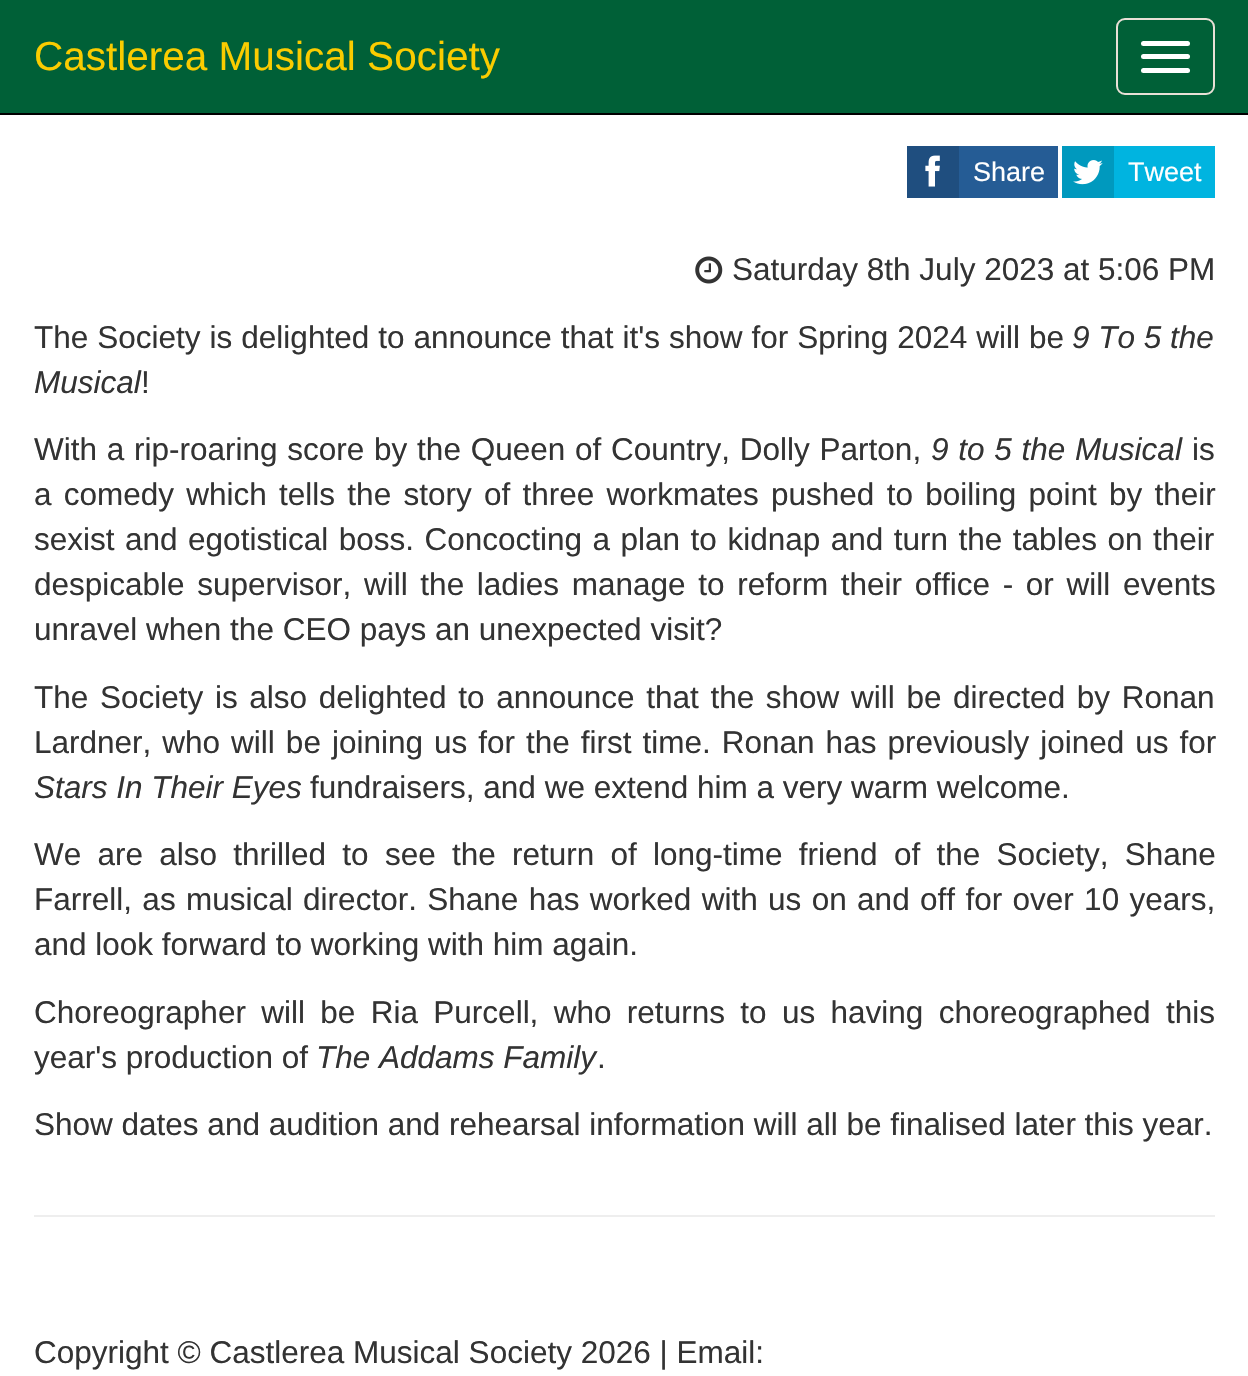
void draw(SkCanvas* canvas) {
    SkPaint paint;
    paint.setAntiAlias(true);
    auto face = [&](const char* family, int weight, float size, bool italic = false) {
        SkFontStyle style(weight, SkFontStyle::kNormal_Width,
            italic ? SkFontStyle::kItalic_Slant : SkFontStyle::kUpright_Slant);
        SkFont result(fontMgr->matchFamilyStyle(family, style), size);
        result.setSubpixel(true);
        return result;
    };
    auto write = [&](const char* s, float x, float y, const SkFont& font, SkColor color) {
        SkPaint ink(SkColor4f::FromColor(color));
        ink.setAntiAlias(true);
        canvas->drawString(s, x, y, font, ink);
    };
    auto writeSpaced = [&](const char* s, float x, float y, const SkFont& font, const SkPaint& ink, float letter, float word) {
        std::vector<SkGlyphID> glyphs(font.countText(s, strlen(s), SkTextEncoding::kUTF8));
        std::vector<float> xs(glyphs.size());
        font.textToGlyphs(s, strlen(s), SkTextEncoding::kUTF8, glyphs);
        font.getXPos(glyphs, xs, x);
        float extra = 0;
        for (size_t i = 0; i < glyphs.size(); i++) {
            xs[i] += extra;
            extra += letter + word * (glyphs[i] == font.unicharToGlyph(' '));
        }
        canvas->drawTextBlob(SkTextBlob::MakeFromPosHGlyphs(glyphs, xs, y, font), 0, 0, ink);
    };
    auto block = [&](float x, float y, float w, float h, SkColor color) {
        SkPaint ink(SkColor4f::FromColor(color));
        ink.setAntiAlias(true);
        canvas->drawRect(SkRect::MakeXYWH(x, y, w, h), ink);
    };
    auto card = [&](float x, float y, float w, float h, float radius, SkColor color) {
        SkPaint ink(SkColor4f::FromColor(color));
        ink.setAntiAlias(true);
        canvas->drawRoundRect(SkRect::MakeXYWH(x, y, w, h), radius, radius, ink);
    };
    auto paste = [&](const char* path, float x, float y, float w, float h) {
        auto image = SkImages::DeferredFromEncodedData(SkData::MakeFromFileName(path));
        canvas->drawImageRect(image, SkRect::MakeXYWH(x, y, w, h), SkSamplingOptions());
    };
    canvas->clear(SK_ColorWHITE);
    block(0, 0, 1248, 113, SkColorSetRGB(0, 96, 55));
    block(0, 113, 1248, 2, SK_ColorBLACK);
    auto kFont1 = face("Liberation Sans", 400, 40.5f);
    write("Castlerea Musical Society", 34, 70, kFont1, SkColorSetRGB(250, 204, 0));
    paint.setStyle(SkPaint::kStroke_Style);
    paint.setStrokeWidth(2);
    paint.setColor(SkColorSetRGB(233, 224, 214));
    canvas->drawRoundRect(SkRect::MakeXYWH(1117, 19, 97, 75), 8, 8, paint);
    card(1141, 41, 49, 5, 2.5f, SK_ColorWHITE);
    card(1141, 54, 49, 5, 2.5f, SK_ColorWHITE);
    card(1141, 68, 49, 5, 2.5f, SK_ColorWHITE);
    block(959, 146, 99, 52, SkColorSetRGB(37, 92, 149));
    block(907, 146, 52, 52, SkColorSetRGB(31, 78, 127));
    paste("pic1.png", 925, 155, 15, 32);
    auto kFont2 = face("Liberation Sans", 400, 27);
    write("Share", 973, 181, kFont2, SK_ColorWHITE);
    block(1114, 146, 101, 52, SkColorSetRGB(0, 180, 224));
    block(1062, 146, 52, 52, SkColorSetRGB(0, 153, 190));
    paste("pic2.png", 1073, 160, 30, 25);
    write("Tweet", 1128, 181, kFont2, SK_ColorWHITE);
    paste("pic3.png", 695, 256, 28, 28);
    auto kFont3 = face("Liberation Sans", 400, 31.5f);
    write("Saturday 8th July 2023 at 5:06 PM", 732, 280, kFont3, SkColorSetRGB(51, 51, 51));
    paint.setStyle(SkPaint::kFill_Style);
    paint.setColor(SkColorSetRGB(51, 51, 51));
    writeSpaced("The Society is delighted to announce that it's show for Spring 2024 will be", 34, 348, kFont3, paint, 0, 0.25f);
    auto kFont4 = face("Liberation Sans", 400, 31.5f, true);
    write("9 To 5 the", 1072, 348, kFont4, SkColorSetRGB(51, 51, 51));
    write("Musical", 34, 393, kFont4, SkColorSetRGB(51, 51, 51));
    write("!", 141, 393, kFont3, SkColorSetRGB(51, 51, 51));
    writeSpaced("With a rip-roaring score by the Queen of Country, Dolly Parton,", 34, 460, kFont3, paint, 0, 1);
    writeSpaced("9 to 5 the Musical", 931, 460, kFont4, paint, 0, 1);
    write("is", 1192, 460, kFont3, SkColorSetRGB(51, 51, 51));
    writeSpaced("a comedy which tells the story of three workmates pushed to boiling point by their", 34, 505, kFont3, paint, 0, 3.5f);
    writeSpaced("sexist and egotistical boss. Concocting a plan to kidnap and turn the tables on their", 34, 550, kFont3, paint, 0, 1.75f);
    writeSpaced("despicable supervisor, will the ladies manage to reform their office - or will events", 34, 595, kFont3, paint, 0, 3.9f);
    write("unravel when the CEO pays an unexpected visit?", 34, 640, kFont3, SkColorSetRGB(51, 51, 51));
    writeSpaced("The Society is also delighted to announce that the show will be directed by Ronan", 34, 708, kFont3, paint, 0, 2.9f);
    writeSpaced("Lardner, who will be joining us for the first time. Ronan has previously joined us for", 34, 753, kFont3, paint, 0, 2.25f);
    write("Stars In Their Eyes", 34, 798, kFont4, SkColorSetRGB(51, 51, 51));
    write("fundraisers, and we extend him a very warm welcome.", 310, 798, kFont3, SkColorSetRGB(51, 51, 51));
    writeSpaced("We are also thrilled to see the return of long-time friend of the Society, Shane", 34, 865, kFont3, paint, 0, 7.5f);
    writeSpaced("Farrell, as musical director. Shane has worked with us on and off for over 10 years,", 34, 910, kFont3, paint, 0, 1.6f);
    write("and look forward to working with him again.", 34, 955, kFont3, SkColorSetRGB(51, 51, 51));
    writeSpaced("Choreographer will be Ria Purcell, who returns to us having choreographed this", 34, 1023, kFont3, paint, 0, 6.6f);
    write("year's production of", 34, 1068, kFont3, SkColorSetRGB(51, 51, 51));
    write("The Addams Family", 316, 1068, kFont4, SkColorSetRGB(51, 51, 51));
    write(".", 597, 1068, kFont3, SkColorSetRGB(51, 51, 51));
    write("Show dates and audition and rehearsal information will all be finalised later this year.", 34, 1135, kFont3, SkColorSetRGB(51, 51, 51));
    block(34, 1215, 1181, 2, SkColorSetRGB(238, 238, 238));
    write("Copyright © Castlerea Musical Society 2026 | Email:", 34, 1363, kFont3, SkColorSetRGB(51, 51, 51));
}
